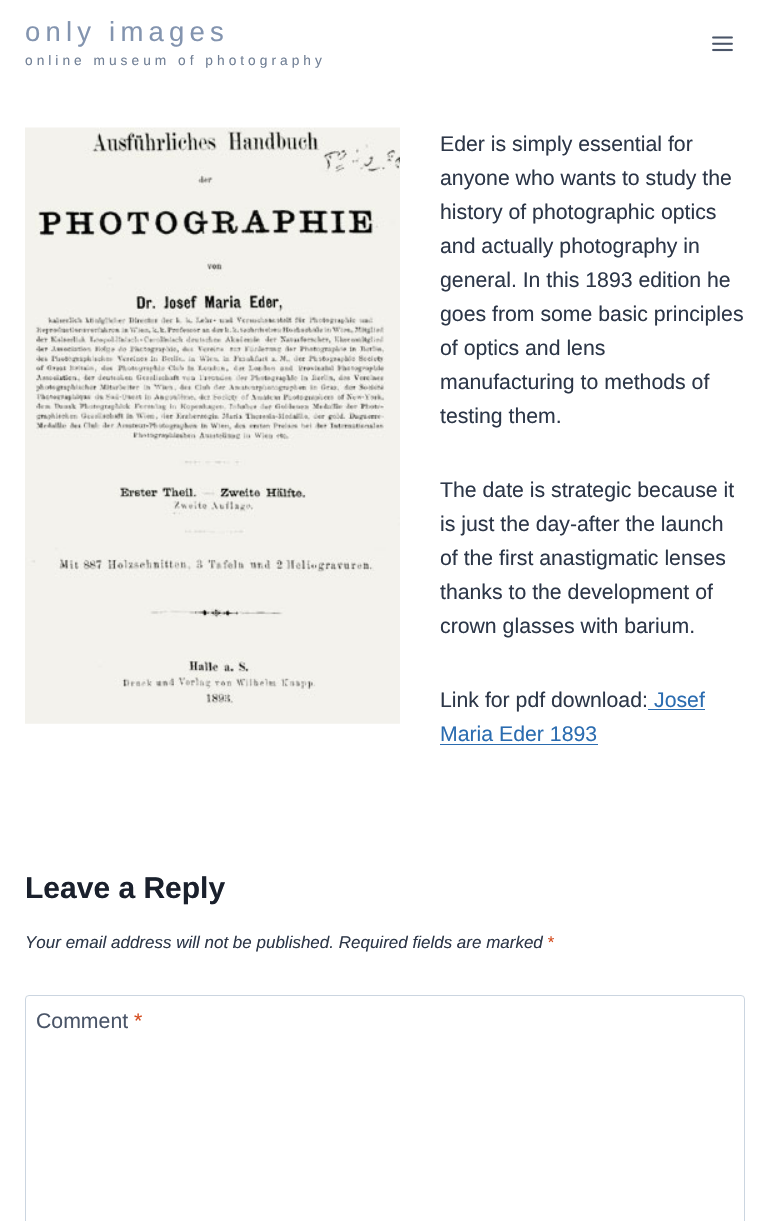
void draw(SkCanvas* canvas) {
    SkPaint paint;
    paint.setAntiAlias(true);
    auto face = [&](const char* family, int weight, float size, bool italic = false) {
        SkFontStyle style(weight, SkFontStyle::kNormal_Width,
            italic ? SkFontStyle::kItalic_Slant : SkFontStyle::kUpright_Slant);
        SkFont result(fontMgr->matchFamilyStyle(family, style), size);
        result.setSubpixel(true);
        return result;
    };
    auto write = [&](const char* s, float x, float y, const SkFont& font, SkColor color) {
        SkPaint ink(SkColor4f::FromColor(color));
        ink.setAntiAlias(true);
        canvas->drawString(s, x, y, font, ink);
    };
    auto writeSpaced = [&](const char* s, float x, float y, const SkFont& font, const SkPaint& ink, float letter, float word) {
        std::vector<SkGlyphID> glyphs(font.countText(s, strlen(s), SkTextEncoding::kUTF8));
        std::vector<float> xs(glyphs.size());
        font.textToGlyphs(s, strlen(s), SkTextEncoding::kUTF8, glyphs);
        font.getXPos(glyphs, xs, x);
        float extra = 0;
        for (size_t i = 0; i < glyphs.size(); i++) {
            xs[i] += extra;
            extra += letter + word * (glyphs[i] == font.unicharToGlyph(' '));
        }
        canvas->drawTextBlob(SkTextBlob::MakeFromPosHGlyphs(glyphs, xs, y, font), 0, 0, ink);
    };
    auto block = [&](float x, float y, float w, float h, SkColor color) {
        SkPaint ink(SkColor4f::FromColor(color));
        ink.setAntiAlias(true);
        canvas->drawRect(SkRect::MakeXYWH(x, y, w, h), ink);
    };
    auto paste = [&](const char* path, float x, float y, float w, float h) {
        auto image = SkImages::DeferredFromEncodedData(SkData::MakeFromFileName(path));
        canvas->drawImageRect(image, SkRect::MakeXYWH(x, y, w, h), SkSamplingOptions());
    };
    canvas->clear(SK_ColorWHITE);
    auto kFont1 = face("Liberation Sans", 400, 27.5f);
    paint.setColor(SkColorSetRGB(131, 148, 175));
    writeSpaced("only images", 25, 41, kFont1, paint, 5.2f, 0);
    auto kFont2 = face("Liberation Sans", 400, 13.75f);
    paint.setColor(SkColorSetRGB(113, 128, 150));
    writeSpaced("online museum of photography", 25, 65, kFont2, paint, 4, 0);
    paste("pic1.png", 712, 36, 21, 16);
    paste("pic2.png", 25, 127, 375, 597);
    auto kFont3 = face("Liberation Sans", 400, 21.25f);
    write("Eder is simply essential for", 440, 151, kFont3, SkColorSetRGB(45, 55, 72));
    write("anyone who wants to study the", 440, 185, kFont3, SkColorSetRGB(45, 55, 72));
    write("history of photographic optics", 440, 219, kFont3, SkColorSetRGB(45, 55, 72));
    write("and actually photography in", 440, 253, kFont3, SkColorSetRGB(45, 55, 72));
    write("general. In this 1893 edition he", 440, 287, kFont3, SkColorSetRGB(45, 55, 72));
    write("goes from some basic principles", 440, 321, kFont3, SkColorSetRGB(45, 55, 72));
    write("of optics and lens", 440, 355, kFont3, SkColorSetRGB(45, 55, 72));
    write("manufacturing to methods of", 440, 389, kFont3, SkColorSetRGB(45, 55, 72));
    write("testing them.", 440, 423, kFont3, SkColorSetRGB(45, 55, 72));
    write("The date is strategic because it", 440, 497, kFont3, SkColorSetRGB(45, 55, 72));
    write("is just the day-after the launch", 440, 531, kFont3, SkColorSetRGB(45, 55, 72));
    write("of the first anastigmatic lenses", 440, 565, kFont3, SkColorSetRGB(45, 55, 72));
    write("thanks to the development of", 440, 599, kFont3, SkColorSetRGB(45, 55, 72));
    write("crown glasses with barium.", 440, 633, kFont3, SkColorSetRGB(45, 55, 72));
    write("Link for pdf download:", 440, 707, kFont3, SkColorSetRGB(45, 55, 72));
    write("Josef", 654, 707, kFont3, SkColorSetRGB(43, 108, 176));
    block(648, 709, 57, 1, SkColorSetRGB(43, 108, 176));
    write("Maria Eder 1893", 440, 741, kFont3, SkColorSetRGB(43, 108, 176));
    block(440, 744, 158, 1, SkColorSetRGB(43, 108, 176));
    auto kFont4 = face("Liberation Sans", 700, 30);
    write("Leave a Reply", 25, 898, kFont4, SkColorSetRGB(26, 32, 44));
    auto kFont5 = face("Liberation Sans", 400, 17, true);
    write("Your email address will not be published. Required fields are marked", 25, 948, kFont5, SkColorSetRGB(45, 55, 72));
    write("*", 547, 948, kFont5, SkColorSetRGB(213, 78, 33));
    paint.setStyle(SkPaint::kStroke_Style);
    paint.setStrokeWidth(1);
    paint.setColor(SkColorSetRGB(203, 213, 224));
    canvas->drawRoundRect(SkRect::MakeXYWH(25.5f, 995.5f, 719, 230), 3.5f, 3.5f, paint);
    write("Comment", 36, 1028, kFont3, SkColorSetRGB(74, 85, 104));
    write("*", 134, 1028, kFont3, SkColorSetRGB(213, 78, 33));
}
